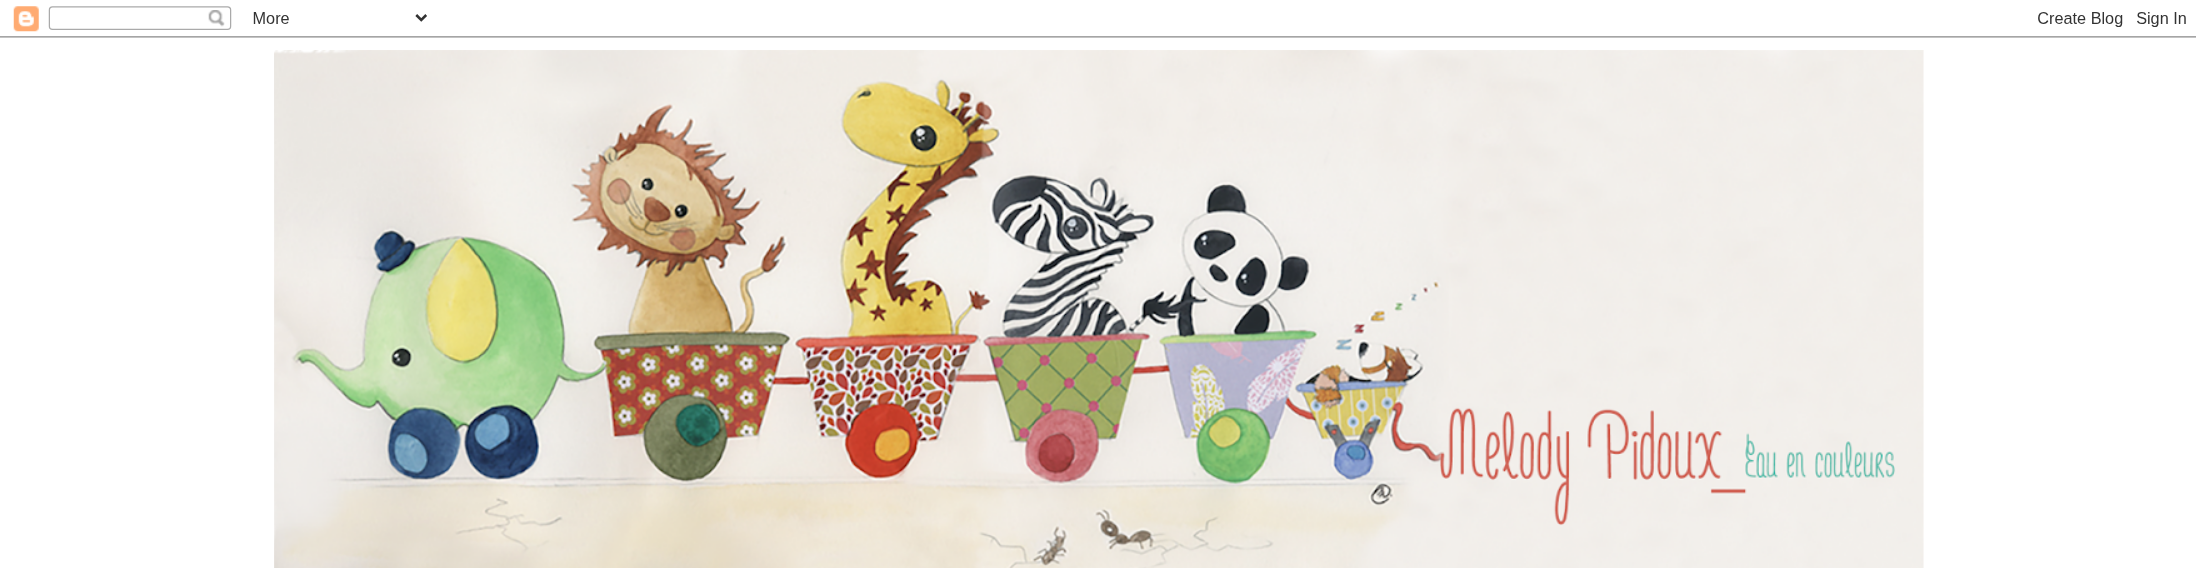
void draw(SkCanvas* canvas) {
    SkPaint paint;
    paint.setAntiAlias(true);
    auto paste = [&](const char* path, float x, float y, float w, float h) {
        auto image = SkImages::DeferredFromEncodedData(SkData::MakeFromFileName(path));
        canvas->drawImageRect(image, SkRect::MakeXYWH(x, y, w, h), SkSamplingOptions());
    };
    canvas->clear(SK_ColorWHITE);
    paste("pic1.png", 0, 6, 2196, 32);
    paste("pic2.png", 274, 50, 1650, 518);
}
